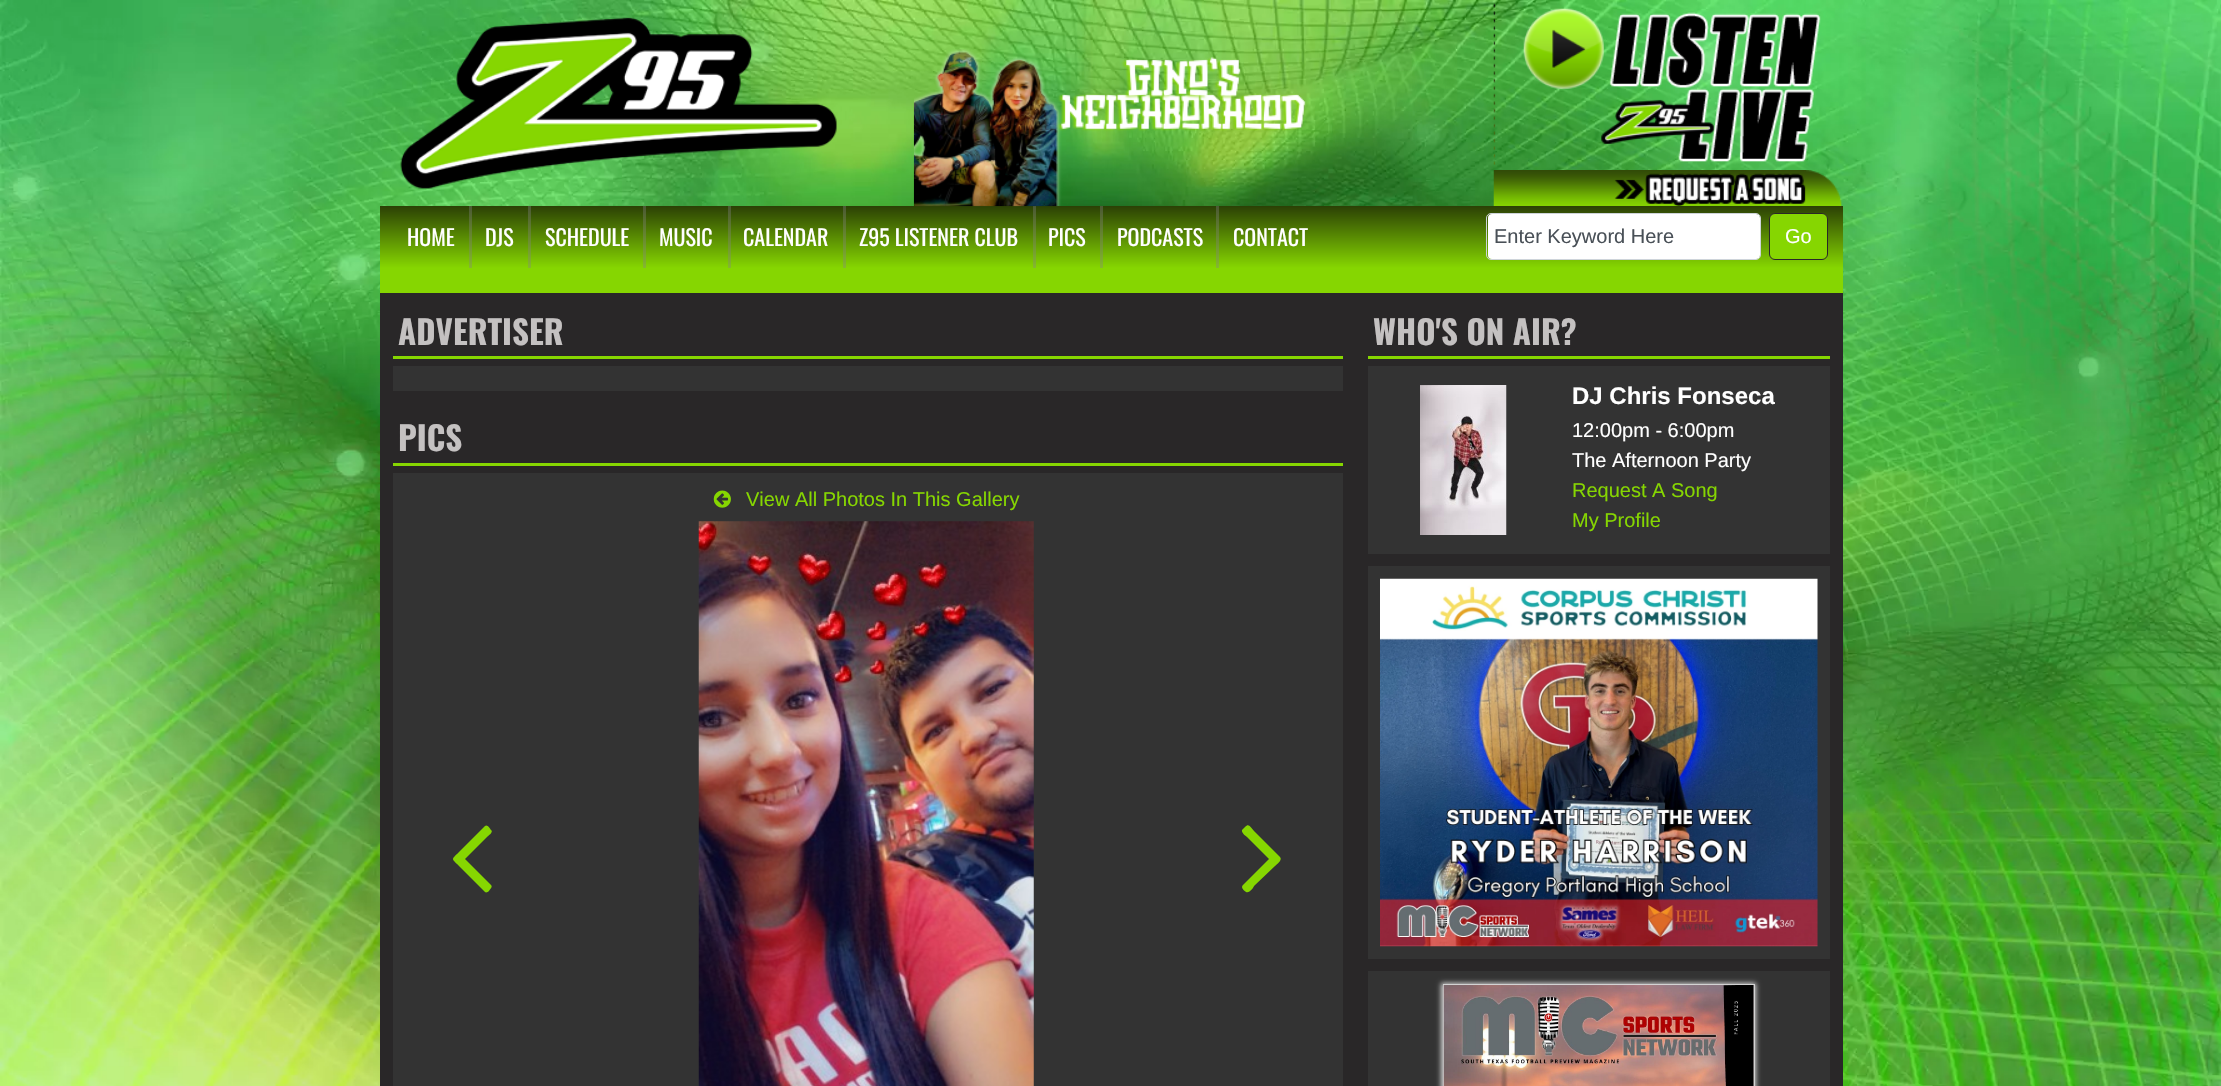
void draw(SkCanvas* canvas) {
    SkPaint paint;
    paint.setAntiAlias(true);
    auto face = [&](const char* family, int weight, float size, bool italic = false) {
        SkFontStyle style(weight, SkFontStyle::kNormal_Width,
            italic ? SkFontStyle::kItalic_Slant : SkFontStyle::kUpright_Slant);
        SkFont result(fontMgr->matchFamilyStyle(family, style), size);
        result.setSubpixel(true);
        return result;
    };
    auto write = [&](const char* s, float x, float y, const SkFont& font, SkColor color) {
        SkPaint ink(SkColor4f::FromColor(color));
        ink.setAntiAlias(true);
        canvas->drawString(s, x, y, font, ink);
    };
    auto block = [&](float x, float y, float w, float h, SkColor color) {
        SkPaint ink(SkColor4f::FromColor(color));
        ink.setAntiAlias(true);
        canvas->drawRect(SkRect::MakeXYWH(x, y, w, h), ink);
    };
    auto card = [&](float x, float y, float w, float h, float radius, SkColor color) {
        SkPaint ink(SkColor4f::FromColor(color));
        ink.setAntiAlias(true);
        canvas->drawRoundRect(SkRect::MakeXYWH(x, y, w, h), radius, radius, ink);
    };
    auto paste = [&](const char* path, float x, float y, float w, float h) {
        auto image = SkImages::DeferredFromEncodedData(SkData::MakeFromFileName(path));
        canvas->drawImageRect(image, SkRect::MakeXYWH(x, y, w, h), SkSamplingOptions());
    };
    canvas->clear(SK_ColorWHITE);
    paste("pic1.png", 0, 0, 2221, 1086);
    paste("pic2.png", 400, 17, 437, 172);
    {
        const SkColor colors[] = {SkColorSetRGB(43, 64, 5), SkColorSetRGB(134, 214, 1)};
        const float stops[] = {0, 1};
        const SkPoint ends[] = {{1111, 206}, {1111, 268}};
        paint.setShader(SkGradientShader::MakeLinear(ends, colors, stops, 2, SkTileMode::kClamp));
        paint.setAlpha(255);
    }
    canvas->drawRect(SkRect::MakeXYWH(380, 206, 1463, 62), paint);
    block(1033, 206, 3, 62, SkColorSetARGB(92, 129, 129, 129));
    block(1100, 206, 3, 62, SkColorSetARGB(92, 129, 129, 129));
    block(1216, 206, 3, 62, SkColorSetARGB(92, 129, 129, 129));
    paste("pic3.png", 913, 49, 393, 158);
    paste("pic4.png", 1493, 3, 328, 162);
    paste("pic5.png", 1493, 170, 349, 36);
    block(469, 206, 3, 62, SkColorSetARGB(92, 129, 129, 129));
    auto kFont1 = face("Oswald", 400, 22);
    write("HOME", 407, 246, kFont1, SK_ColorWHITE);
    block(528, 206, 3, 62, SkColorSetARGB(92, 129, 129, 129));
    write("DJS", 485, 246, kFont1, SK_ColorWHITE);
    block(643, 206, 3, 62, SkColorSetARGB(92, 129, 129, 129));
    write("SCHEDULE", 545, 246, kFont1, SK_ColorWHITE);
    block(728, 206, 3, 62, SkColorSetARGB(92, 129, 129, 129));
    write("MUSIC", 659, 246, kFont1, SK_ColorWHITE);
    block(843, 206, 3, 62, SkColorSetARGB(92, 129, 129, 129));
    write("CALENDAR", 743, 246, kFont1, SK_ColorWHITE);
    write("Z95 LISTENER CLUB", 859, 246, kFont1, SK_ColorWHITE);
    write("PICS", 1048, 246, kFont1, SK_ColorWHITE);
    write("PODCASTS", 1117, 246, kFont1, SK_ColorWHITE);
    write("CONTACT", 1233, 246, kFont1, SK_ColorWHITE);
    card(1488, 214, 272, 45, 4, SK_ColorWHITE);
    paint.setStyle(SkPaint::kStroke_Style);
    paint.setStrokeWidth(1);
    paint.setShader(nullptr);
    paint.setColor(SkColorSetRGB(206, 212, 218));
    canvas->drawRoundRect(SkRect::MakeXYWH(1486.5f, 213.5f, 274, 46), 4.5f, 4.5f, paint);
    auto kFont2 = face("Liberation Sans", 400, 20);
    write("Enter Keyword Here", 1494, 243, kFont2, SkColorSetRGB(73, 80, 87));
    paint.setStyle(SkPaint::kFill_Style);
    paint.setColor(SkColorSetRGB(134, 214, 1));
    canvas->drawRoundRect(SkRect::MakeXYWH(1769.5f, 213.5f, 58, 46), 5.5f, 5.5f, paint);
    paint.setStyle(SkPaint::kStroke_Style);
    paint.setColor(SkColorSetRGB(41, 39, 40));
    canvas->drawRoundRect(SkRect::MakeXYWH(1769.5f, 213.5f, 58, 46), 5.5f, 5.5f, paint);
    write("Go", 1785, 243, kFont2, SK_ColorWHITE);
    block(380, 268, 1463, 25, SkColorSetRGB(134, 214, 1));
    block(380, 293, 1463, 793, SkColorSetRGB(41, 39, 40));
    block(393, 356, 950, 3, SkColorSetRGB(134, 214, 1));
    auto kFont3 = face("Oswald", 700, 33);
    write("ADVERTISER", 398, 345, kFont3, SkColorSetRGB(196, 193, 193));
    block(393, 366, 950, 25, SkColorSetRGB(51, 51, 51));
    block(393, 463, 950, 3, SkColorSetRGB(134, 214, 1));
    write("PICS", 398, 451, kFont3, SkColorSetRGB(196, 193, 193));
    block(393, 473, 950, 613, SkColorSetRGB(51, 51, 51));
    paste("pic6.png", 713, 490, 18, 18);
    write("View All Photos In This Gallery", 746, 506, kFont2, SkColorSetRGB(134, 214, 1));
    paint.setStyle(SkPaint::kFill_Style);
    paint.setColor(SkColorSetRGB(134, 214, 1));
    canvas->drawPath(SkPathBuilder().moveTo(491, 830).cubicTo(494, 832, 488, 836, 487, 837).lineTo(465, 859).lineTo(491, 885).cubicTo(493, 887, 490, 889, 489, 891).cubicTo(488, 892, 486, 893, 485, 892).lineTo(459, 866).cubicTo(451, 858, 451, 860, 459, 852).lineTo(485, 826).cubicTo(487, 824, 490, 828, 491, 830).close().detach(), paint);
    paste("pic7.png", 698, 521, 336, 565);
    canvas->drawPath(SkPathBuilder().moveTo(1280, 857).cubicTo(1283, 860, 1276, 865, 1275, 866).lineTo(1254, 886).cubicTo(1254, 887, 1249, 894, 1246, 892).cubicTo(1245, 891, 1240, 888, 1243, 885).lineTo(1269, 859).lineTo(1247, 837).cubicTo(1247, 837, 1241, 833, 1242, 830).lineTo(1245, 827).cubicTo(1249, 823, 1250, 827, 1254, 831).close().detach(), paint);
    block(1368, 356, 462, 3, SkColorSetRGB(134, 214, 1));
    write("WHO'S ON AIR?", 1373, 345, kFont3, SkColorSetRGB(196, 193, 193));
    block(1368, 366, 462, 188, SkColorSetRGB(51, 51, 51));
    paste("pic8.png", 1420, 385, 87, 150);
    auto kFont4 = face("Liberation Sans", 700, 24);
    write("DJ Chris Fonseca", 1572, 404, kFont4, SK_ColorWHITE);
    write("12:00pm - 6:00pm", 1572, 437, kFont2, SK_ColorWHITE);
    write("The Afternoon Party", 1572, 467, kFont2, SK_ColorWHITE);
    write("Request A Song", 1572, 497, kFont2, SkColorSetRGB(134, 214, 1));
    write("My Profile", 1572, 527, kFont2, SkColorSetRGB(134, 214, 1));
    block(1368, 566, 462, 393, SkColorSetRGB(51, 51, 51));
    paste("pic9.png", 1380, 578, 438, 369);
    block(1368, 971, 462, 115, SkColorSetRGB(51, 51, 51));
    paint.setColor(SkColorSetRGB(211, 211, 211));
    paint.setMaskFilter(SkMaskFilter::MakeBlur(kNormal_SkBlurStyle, 2.5f));
    canvas->drawRect(SkRect::MakeXYWH(1441, 983, 315, 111), paint);
    paint.setMaskFilter(nullptr);
    paint.setStyle(SkPaint::kStroke_Style);
    canvas->drawRect(SkRect::MakeXYWH(1443.5f, 984.5f, 311, 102), paint);
    paste("pic10.png", 1443, 985, 311, 101);
}
